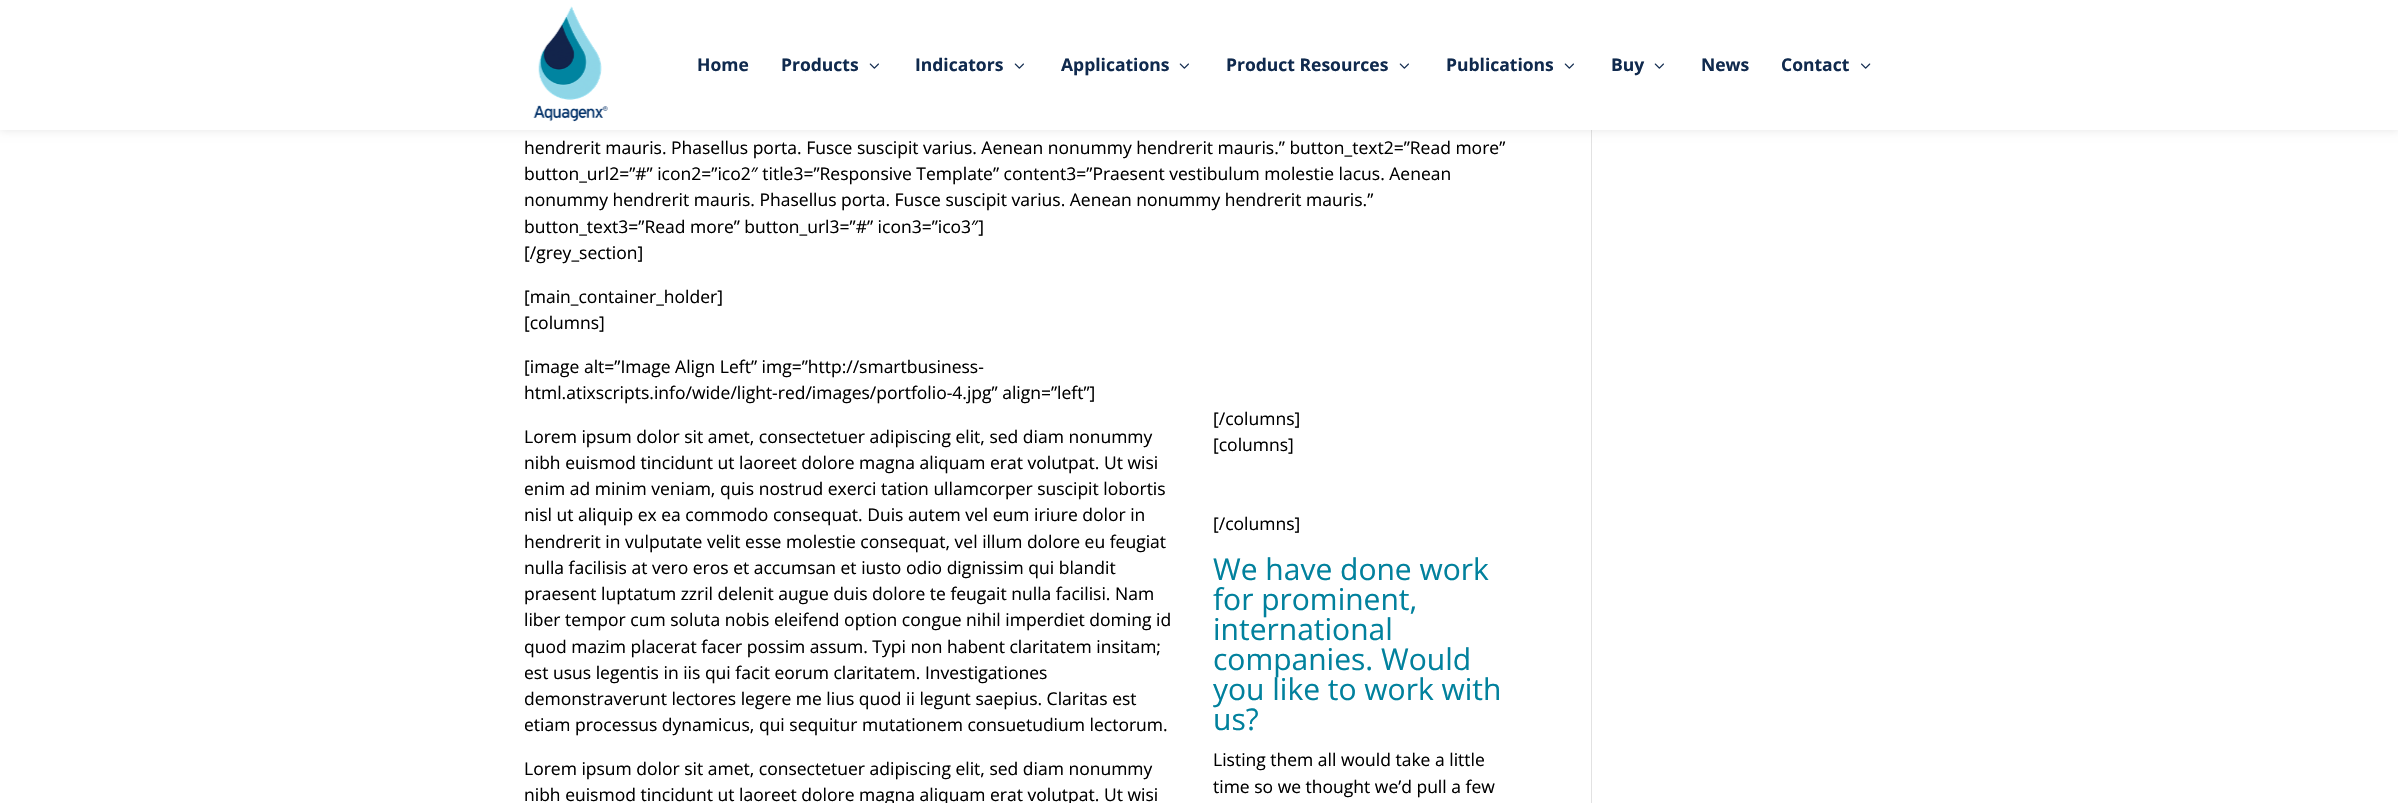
void draw(SkCanvas* canvas) {
    SkPaint paint;
    paint.setAntiAlias(true);
    auto face = [&](const char* family, int weight, float size, bool italic = false) {
        SkFontStyle style(weight, SkFontStyle::kNormal_Width,
            italic ? SkFontStyle::kItalic_Slant : SkFontStyle::kUpright_Slant);
        SkFont result(fontMgr->matchFamilyStyle(family, style), size);
        result.setSubpixel(true);
        return result;
    };
    auto write = [&](const char* s, float x, float y, const SkFont& font, SkColor color) {
        SkPaint ink(SkColor4f::FromColor(color));
        ink.setAntiAlias(true);
        canvas->drawString(s, x, y, font, ink);
    };
    auto block = [&](float x, float y, float w, float h, SkColor color) {
        SkPaint ink(SkColor4f::FromColor(color));
        ink.setAntiAlias(true);
        canvas->drawRect(SkRect::MakeXYWH(x, y, w, h), ink);
    };
    auto paste = [&](const char* path, float x, float y, float w, float h) {
        auto image = SkImages::DeferredFromEncodedData(SkData::MakeFromFileName(path));
        canvas->drawImageRect(image, SkRect::MakeXYWH(x, y, w, h), SkSamplingOptions());
    };
    canvas->clear(SK_ColorWHITE);
    block(1591, 130, 1, 673, SkColorSetRGB(226, 226, 226));
    paint.setColor(SkColorSetARGB(26, 0, 0, 0));
    paint.setMaskFilter(SkMaskFilter::MakeBlur(kNormal_SkBlurStyle, 4.5f));
    canvas->drawRect(SkRect::MakeXYWH(0, 0, 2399, 130), paint);
    paint.setMaskFilter(nullptr);
    block(0, 0, 2398, 130, SK_ColorWHITE);
    paste("pic1.png", 533, 6, 75, 116);
    auto kFont1 = face("Open Sans", 700, 17.5f);
    write("Home", 697, 71, kFont1, SkColorSetRGB(16, 42, 78));
    write("Products", 781, 71, kFont1, SkColorSetRGB(16, 42, 78));
    paste("pic2.png", 869, 63, 10, 6);
    write("Indicators", 915, 71, kFont1, SkColorSetRGB(16, 42, 78));
    paste("pic2.png", 1014, 63, 10, 6);
    write("Applications", 1061, 71, kFont1, SkColorSetRGB(16, 42, 78));
    paste("pic2.png", 1179, 63, 10, 6);
    write("Product Resources", 1226, 71, kFont1, SkColorSetRGB(16, 42, 78));
    paste("pic2.png", 1399, 63, 10, 6);
    write("Publications", 1446, 71, kFont1, SkColorSetRGB(16, 42, 78));
    paste("pic2.png", 1564, 63, 10, 6);
    write("Buy", 1611, 71, kFont1, SkColorSetRGB(16, 42, 78));
    paste("pic2.png", 1654, 63, 10, 6);
    write("News", 1701, 71, kFont1, SkColorSetRGB(16, 42, 78));
    write("Contact", 1781, 71, kFont1, SkColorSetRGB(16, 42, 78));
    paste("pic3.png", 1861, 63, 10, 6);
    auto kFont2 = face("Open Sans", 400, 17.5f);
    write("hendrerit mauris. Phasellus porta. Fusce suscipit varius. Aenean nonummy hendrerit mauris.” button_text2=”Read more”", 524, 154, kFont2, SK_ColorBLACK);
    write("button_url2=”#” icon2=”ico2″ title3=”Responsive Template” content3=”Praesent vestibulum molestie lacus. Aenean", 524, 180, kFont2, SK_ColorBLACK);
    write("nonummy hendrerit mauris. Phasellus porta. Fusce suscipit varius. Aenean nonummy hendrerit mauris.”", 524, 206, kFont2, SK_ColorBLACK);
    write("button_text3=”Read more” button_url3=”#” icon3=”ico3″]", 524, 233, kFont2, SK_ColorBLACK);
    write("[/grey_section]", 524, 259, kFont2, SK_ColorBLACK);
    write("[main_container_holder]", 524, 303, kFont2, SK_ColorBLACK);
    write("[columns]", 524, 329, kFont2, SK_ColorBLACK);
    write("[image alt=”Image Align Left” img=”http://smartbusiness-", 524, 373, kFont2, SK_ColorBLACK);
    write("html.atixscripts.info/wide/light-red/images/portfolio-4.jpg” align=”left”]", 524, 399, kFont2, SK_ColorBLACK);
    write("Lorem ipsum dolor sit amet, consectetuer adipiscing elit, sed diam nonummy", 524, 443, kFont2, SK_ColorBLACK);
    write("nibh euismod tincidunt ut laoreet dolore magna aliquam erat volutpat. Ut wisi", 524, 469, kFont2, SK_ColorBLACK);
    write("enim ad minim veniam, quis nostrud exerci tation ullamcorper suscipit lobortis", 524, 495, kFont2, SK_ColorBLACK);
    write("nisl ut aliquip ex ea commodo consequat. Duis autem vel eum iriure dolor in", 524, 521, kFont2, SK_ColorBLACK);
    write("hendrerit in vulputate velit esse molestie consequat, vel illum dolore eu feugiat", 524, 548, kFont2, SK_ColorBLACK);
    write("nulla facilisis at vero eros et accumsan et iusto odio dignissim qui blandit", 524, 574, kFont2, SK_ColorBLACK);
    write("praesent luptatum zzril delenit augue duis dolore te feugait nulla facilisi. Nam", 524, 600, kFont2, SK_ColorBLACK);
    write("liber tempor cum soluta nobis eleifend option congue nihil imperdiet doming id", 524, 626, kFont2, SK_ColorBLACK);
    write("quod mazim placerat facer possim assum. Typi non habent claritatem insitam;", 524, 653, kFont2, SK_ColorBLACK);
    write("est usus legentis in iis qui facit eorum claritatem. Investigationes", 524, 679, kFont2, SK_ColorBLACK);
    write("demonstraverunt lectores legere me lius quod ii legunt saepius. Claritas est", 524, 705, kFont2, SK_ColorBLACK);
    write("etiam processus dynamicus, qui sequitur mutationem consuetudium lectorum.", 524, 731, kFont2, SK_ColorBLACK);
    write("Lorem ipsum dolor sit amet, consectetuer adipiscing elit, sed diam nonummy", 524, 775, kFont2, SK_ColorBLACK);
    write("nibh euismod tincidunt ut laoreet dolore magna aliquam erat volutpat. Ut wisi", 524, 801, kFont2, SK_ColorBLACK);
    write("[/columns]", 1213, 425, kFont2, SK_ColorBLACK);
    write("[columns]", 1213, 451, kFont2, SK_ColorBLACK);
    write("[/columns]", 1213, 530, kFont2, SK_ColorBLACK);
    auto kFont3 = face("Open Sans", 400, 30);
    write("We have done work", 1213, 580, kFont3, SkColorSetRGB(1, 129, 157));
    write("for prominent,", 1213, 610, kFont3, SkColorSetRGB(1, 129, 157));
    write("international", 1213, 640, kFont3, SkColorSetRGB(1, 129, 157));
    write("companies. Would", 1213, 670, kFont3, SkColorSetRGB(1, 129, 157));
    write("you like to work with", 1213, 700, kFont3, SkColorSetRGB(1, 129, 157));
    write("us?", 1213, 730, kFont3, SkColorSetRGB(1, 129, 157));
    write("Listing them all would take a little", 1213, 766, kFont2, SK_ColorBLACK);
    write("time so we thought we’d pull a few", 1213, 793, kFont2, SK_ColorBLACK);
}
